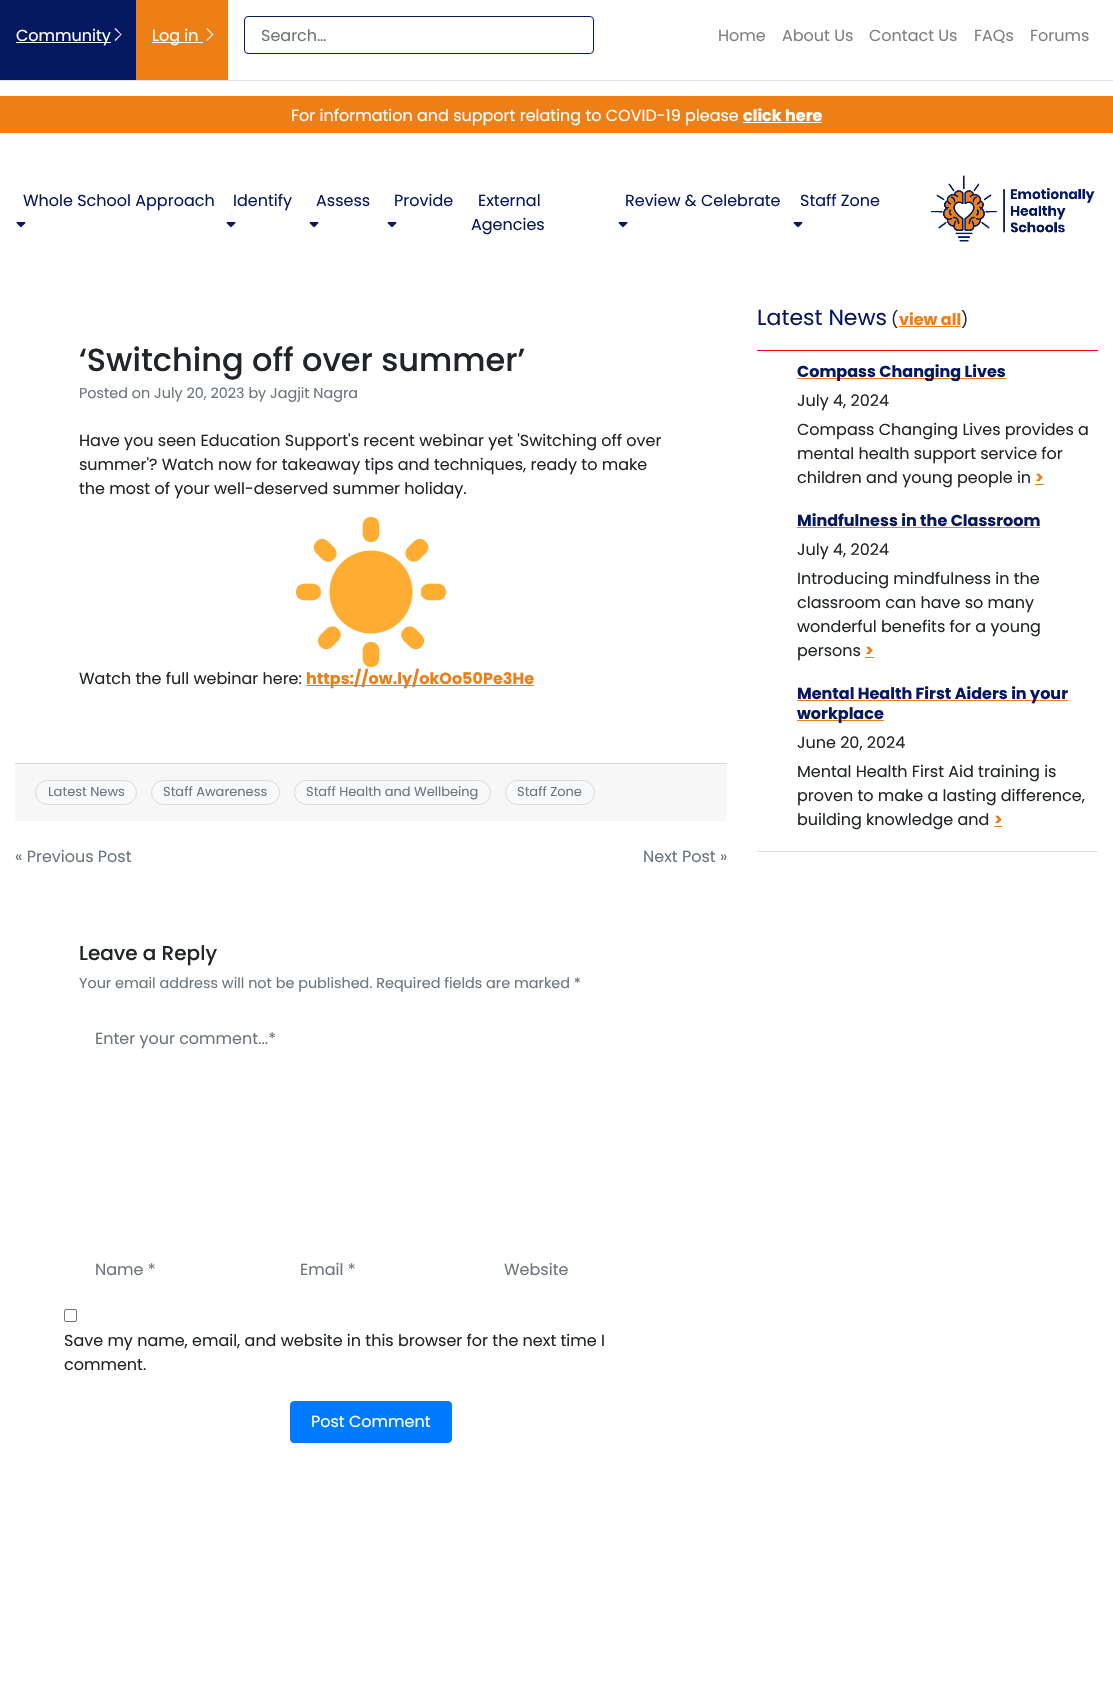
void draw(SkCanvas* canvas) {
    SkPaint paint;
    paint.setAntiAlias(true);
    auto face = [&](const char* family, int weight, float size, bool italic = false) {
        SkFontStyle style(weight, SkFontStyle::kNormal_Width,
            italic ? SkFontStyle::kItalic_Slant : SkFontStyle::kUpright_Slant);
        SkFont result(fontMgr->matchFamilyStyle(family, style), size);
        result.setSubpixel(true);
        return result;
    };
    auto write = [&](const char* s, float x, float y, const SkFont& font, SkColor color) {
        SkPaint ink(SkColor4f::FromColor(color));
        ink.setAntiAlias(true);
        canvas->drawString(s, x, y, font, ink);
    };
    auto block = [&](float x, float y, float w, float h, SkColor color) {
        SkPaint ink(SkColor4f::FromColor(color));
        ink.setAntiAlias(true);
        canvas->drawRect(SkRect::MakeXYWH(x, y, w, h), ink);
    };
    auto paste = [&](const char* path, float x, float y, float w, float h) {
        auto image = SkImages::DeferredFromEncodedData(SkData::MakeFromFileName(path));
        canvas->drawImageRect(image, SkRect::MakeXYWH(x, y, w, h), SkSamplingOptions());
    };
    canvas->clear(SK_ColorWHITE);
    block(0, 80, 1113, 1, SkColorSetRGB(223, 223, 223));
    block(0, 0, 136, 80, SkColorSetRGB(6, 25, 96));
    block(16, 42, 95, 1, SK_ColorWHITE);
    auto kFont1 = face("Poppins", 400, 16);
    write("Community", 16, 41, kFont1, SK_ColorWHITE);
    paint.setColor(SK_ColorWHITE);
    canvas->drawPath(SkPathBuilder().moveTo(114.5f, 29).lineTo(115.5f, 28).lineTo(121.5f, 34.5f).lineTo(121, 35).close().detach(), paint);
    canvas->drawPath(SkPathBuilder().moveTo(114.5f, 40).lineTo(121, 34).lineTo(121.5f, 34.5f).lineTo(115.5f, 41).close().detach(), paint);
    block(136, 0, 92, 80, SkColorSetRGB(238, 127, 23));
    block(152, 42, 51, 1, SK_ColorWHITE);
    write("Log in", 152, 41, kFont1, SK_ColorWHITE);
    canvas->drawPath(SkPathBuilder().moveTo(206.5f, 29).lineTo(207, 28).lineTo(213.5f, 34.5f).lineTo(212.5f, 35).close().detach(), paint);
    canvas->drawPath(SkPathBuilder().moveTo(206.5f, 40).lineTo(212.5f, 34).lineTo(213.5f, 34.5f).lineTo(207, 41).close().detach(), paint);
    paint.setStyle(SkPaint::kStroke_Style);
    paint.setStrokeWidth(1);
    paint.setColor(SkColorSetRGB(6, 25, 96));
    canvas->drawRoundRect(SkRect::MakeXYWH(244.5f, 16.5f, 349, 37), 3.5f, 3.5f, paint);
    write("Search…", 261, 41, kFont1, SkColorSetRGB(108, 117, 125));
    write("Home", 718, 41, kFont1, SkColorSetRGB(128, 128, 128));
    write("About Us", 782, 41, kFont1, SkColorSetRGB(128, 128, 128));
    write("Contact Us", 869, 41, kFont1, SkColorSetRGB(128, 128, 128));
    write("FAQs", 974, 41, kFont1, SkColorSetRGB(128, 128, 128));
    write("Forums", 1030, 41, kFont1, SkColorSetRGB(128, 128, 128));
    block(0, 96, 1113, 37, SkColorSetRGB(238, 127, 23));
    write("For information and support relating to COVID-19 please", 291, 121, kFont1, SK_ColorWHITE);
    auto kFont2 = face("Poppins", 700, 16);
    write("click here", 743, 121, kFont2, SK_ColorWHITE);
    block(743, 122, 79, 1, SK_ColorWHITE);
    write("Whole School Approach", 23, 206, kFont1, SkColorSetRGB(6, 25, 96));
    paste("pic1.png", 16, 222, 10, 6);
    write("Identify", 233, 206, kFont1, SkColorSetRGB(6, 25, 96));
    paste("pic1.png", 226, 222, 10, 6);
    write("Assess", 316, 206, kFont1, SkColorSetRGB(6, 25, 96));
    paste("pic1.png", 309, 222, 10, 6);
    write("Provide", 394, 206, kFont1, SkColorSetRGB(6, 25, 96));
    paste("pic1.png", 387, 222, 10, 6);
    write("External", 478, 206, kFont1, SkColorSetRGB(6, 25, 96));
    write("Agencies", 471, 230, kFont1, SkColorSetRGB(6, 25, 96));
    write("Review & Celebrate", 625, 206, kFont1, SkColorSetRGB(6, 25, 96));
    paste("pic1.png", 618, 222, 10, 6);
    write("Staff Zone", 800, 206, kFont1, SkColorSetRGB(6, 25, 96));
    paste("pic1.png", 793, 222, 10, 6);
    paste("pic2.png", 931, 175, 164, 67);
    auto kFont3 = face("Poppins", 500, 32);
    write("‘Switching off over summer’", 79, 371, kFont3, SkColorSetRGB(33, 37, 41));
    auto kFont4 = face("Poppins", 400, 14.4f);
    write("Posted on July 20, 2023 by Jagjit Nagra", 79, 398, kFont4, SkColorSetRGB(108, 117, 125));
    write("Have you seen Education Support's recent webinar yet 'Switching off over", 79, 446, kFont1, SkColorSetRGB(33, 37, 41));
    write("summer'? Watch now for takeaway tips and techniques, ready to make", 79, 470, kFont1, SkColorSetRGB(33, 37, 41));
    write("the most of your well-deserved summer holiday.", 79, 494, kFont1, SkColorSetRGB(33, 37, 41));
    paste("pic3.png", 296, 517, 150, 150);
    write("Watch the full webinar here:", 79, 684, kFont1, SkColorSetRGB(33, 37, 41));
    block(306, 685, 228, 1, SkColorSetRGB(238, 127, 23));
    write("https://ow.ly/okOo50Pe3He", 306, 684, kFont2, SkColorSetRGB(238, 127, 23));
    paint.setStyle(SkPaint::kFill_Style);
    paint.setColor(SkColorSetRGB(247, 247, 247));
    canvas->drawPath(SkPathBuilder().moveTo(15, 763).lineTo(727, 763).lineTo(727, 818).cubicTo(727, 819.5f, 725.5f, 821, 724, 821).lineTo(18, 821).cubicTo(16.5f, 821, 15, 819.5f, 15, 818).close().detach(), paint);
    block(15, 763, 712, 1, SkColorSetRGB(216, 216, 216));
    paint.setColor(SkColorSetRGB(248, 249, 250));
    canvas->drawRoundRect(SkRect::MakeXYWH(35.5f, 780.5f, 101, 24), 12, 12, paint);
    paint.setStyle(SkPaint::kStroke_Style);
    paint.setColor(SkColorSetRGB(217, 218, 219));
    canvas->drawRoundRect(SkRect::MakeXYWH(35.5f, 780.5f, 101, 24), 12, 12, paint);
    auto kFont5 = face("Poppins", 400, 13);
    write("Latest News", 48, 796, kFont5, SkColorSetRGB(108, 117, 125));
    paint.setStyle(SkPaint::kFill_Style);
    paint.setColor(SkColorSetRGB(248, 249, 250));
    canvas->drawRoundRect(SkRect::MakeXYWH(151.5f, 780.5f, 128, 24), 12, 12, paint);
    paint.setStyle(SkPaint::kStroke_Style);
    paint.setColor(SkColorSetRGB(217, 218, 219));
    canvas->drawRoundRect(SkRect::MakeXYWH(151.5f, 780.5f, 128, 24), 12, 12, paint);
    write("Staff Awareness", 163, 796, kFont5, SkColorSetRGB(108, 117, 125));
    paint.setStyle(SkPaint::kFill_Style);
    paint.setColor(SkColorSetRGB(248, 249, 250));
    canvas->drawRoundRect(SkRect::MakeXYWH(294.5f, 780.5f, 196, 24), 12, 12, paint);
    paint.setStyle(SkPaint::kStroke_Style);
    paint.setColor(SkColorSetRGB(217, 218, 219));
    canvas->drawRoundRect(SkRect::MakeXYWH(294.5f, 780.5f, 196, 24), 12, 12, paint);
    write("Staff Health and Wellbeing", 306, 796, kFont5, SkColorSetRGB(108, 117, 125));
    paint.setStyle(SkPaint::kFill_Style);
    paint.setColor(SkColorSetRGB(248, 249, 250));
    canvas->drawRoundRect(SkRect::MakeXYWH(505.5f, 780.5f, 89, 24), 12, 12, paint);
    paint.setStyle(SkPaint::kStroke_Style);
    paint.setColor(SkColorSetRGB(217, 218, 219));
    canvas->drawRoundRect(SkRect::MakeXYWH(505.5f, 780.5f, 89, 24), 12, 12, paint);
    write("Staff Zone", 517, 796, kFont5, SkColorSetRGB(108, 117, 125));
    write("« Previous Post", 15, 862, kFont1, SkColorSetRGB(108, 117, 125));
    write("Next Post »", 643, 862, kFont1, SkColorSetRGB(108, 117, 125));
    auto kFont6 = face("Poppins", 500, 20);
    write("Leave a Reply", 79, 960, kFont6, SkColorSetRGB(33, 37, 41));
    write("Your email address will not be published. Required fields are marked *", 79, 988, kFont4, SkColorSetRGB(108, 117, 125));
    write("Enter your comment...*", 95, 1044, kFont1, SkColorSetRGB(108, 117, 125));
    write("Name *", 95, 1275, kFont1, SkColorSetRGB(108, 117, 125));
    write("Email *", 300, 1275, kFont1, SkColorSetRGB(108, 117, 125));
    write("Website", 504, 1275, kFont1, SkColorSetRGB(108, 117, 125));
    paint.setColor(SkColorSetRGB(118, 118, 118));
    canvas->drawRoundRect(SkRect::MakeXYWH(64.5f, 1309.5f, 12, 12), 1.5f, 1.5f, paint);
    write("Save my name, email, and website in this browser for the next time I", 64, 1346, kFont1, SkColorSetRGB(33, 37, 41));
    write("comment.", 64, 1370, kFont1, SkColorSetRGB(33, 37, 41));
    paint.setStyle(SkPaint::kFill_Style);
    paint.setColor(SkColorSetRGB(0, 123, 255));
    canvas->drawRoundRect(SkRect::MakeXYWH(290.5f, 1401.5f, 161, 41), 3.5f, 3.5f, paint);
    paint.setStyle(SkPaint::kStroke_Style);
    canvas->drawRoundRect(SkRect::MakeXYWH(290.5f, 1401.5f, 161, 41), 3.5f, 3.5f, paint);
    write("Post Comment", 311, 1427, kFont1, SK_ColorWHITE);
    block(757, 350, 341, 1, SkColorSetRGB(255, 0, 0));
    auto kFont7 = face("Poppins", 400, 22);
    write("Latest News", 757, 325, kFont7, SkColorSetRGB(6, 25, 96));
    write("(", 891, 325, kFont1, SkColorSetRGB(33, 37, 41));
    write("view all", 899, 325, kFont2, SkColorSetRGB(238, 127, 23));
    block(899, 326, 62, 1, SkColorSetRGB(238, 127, 23));
    write(")", 961, 325, kFont1, SkColorSetRGB(33, 37, 41));
    block(757, 851, 341, 1, SkColorSetRGB(222, 226, 230));
    block(797, 378, 209, 1, SkColorSetRGB(238, 127, 23));
    canvas->save();
    canvas->clipRect(SkRect::MakeXYWH(797, 362, 301, 19));
    write("Compass Changing Lives", 797, 377, kFont2, SkColorSetRGB(6, 25, 96));
    canvas->restore();
    write("July 4, 2024", 797, 406, kFont1, SkColorSetRGB(33, 37, 41));
    write("Compass Changing Lives provides a", 797, 435, kFont1, SkColorSetRGB(33, 37, 41));
    write("mental health support service for", 797, 459, kFont1, SkColorSetRGB(33, 37, 41));
    write("children and young people in", 797, 483, kFont1, SkColorSetRGB(33, 37, 41));
    write(">", 1035, 483, kFont2, SkColorSetRGB(238, 127, 23));
    block(1035, 484, 9, 1, SkColorSetRGB(238, 127, 23));
    write("Mindfulness in the Classroom", 797, 526, kFont2, SkColorSetRGB(6, 25, 96));
    block(797, 527, 243, 1, SkColorSetRGB(238, 127, 23));
    write("July 4, 2024", 797, 555, kFont1, SkColorSetRGB(33, 37, 41));
    write("Introducing mindfulness in the", 797, 584, kFont1, SkColorSetRGB(33, 37, 41));
    write("classroom can have so many", 797, 608, kFont1, SkColorSetRGB(33, 37, 41));
    write("wonderful benefits for a young", 797, 632, kFont1, SkColorSetRGB(33, 37, 41));
    write("persons", 797, 656, kFont1, SkColorSetRGB(33, 37, 41));
    write(">", 865, 656, kFont2, SkColorSetRGB(238, 127, 23));
    block(865, 657, 9, 1, SkColorSetRGB(238, 127, 23));
    block(797, 700, 271, 1, SkColorSetRGB(238, 127, 23));
    write("Mental Health First Aiders in your", 797, 699, kFont2, SkColorSetRGB(6, 25, 96));
    block(797, 720, 87, 1, SkColorSetRGB(238, 127, 23));
    canvas->save();
    canvas->clipRect(SkRect::MakeXYWH(797, 684, 301, 39));
    write("workplace", 797, 719, kFont2, SkColorSetRGB(6, 25, 96));
    canvas->restore();
    write("June 20, 2024", 797, 748, kFont1, SkColorSetRGB(33, 37, 41));
    write("Mental Health First Aid training is", 797, 777, kFont1, SkColorSetRGB(33, 37, 41));
    write("proven to make a lasting difference,", 797, 801, kFont1, SkColorSetRGB(33, 37, 41));
    write("building knowledge and", 797, 825, kFont1, SkColorSetRGB(33, 37, 41));
    write(">", 994, 825, kFont2, SkColorSetRGB(238, 127, 23));
    block(994, 826, 8, 1, SkColorSetRGB(238, 127, 23));
}
